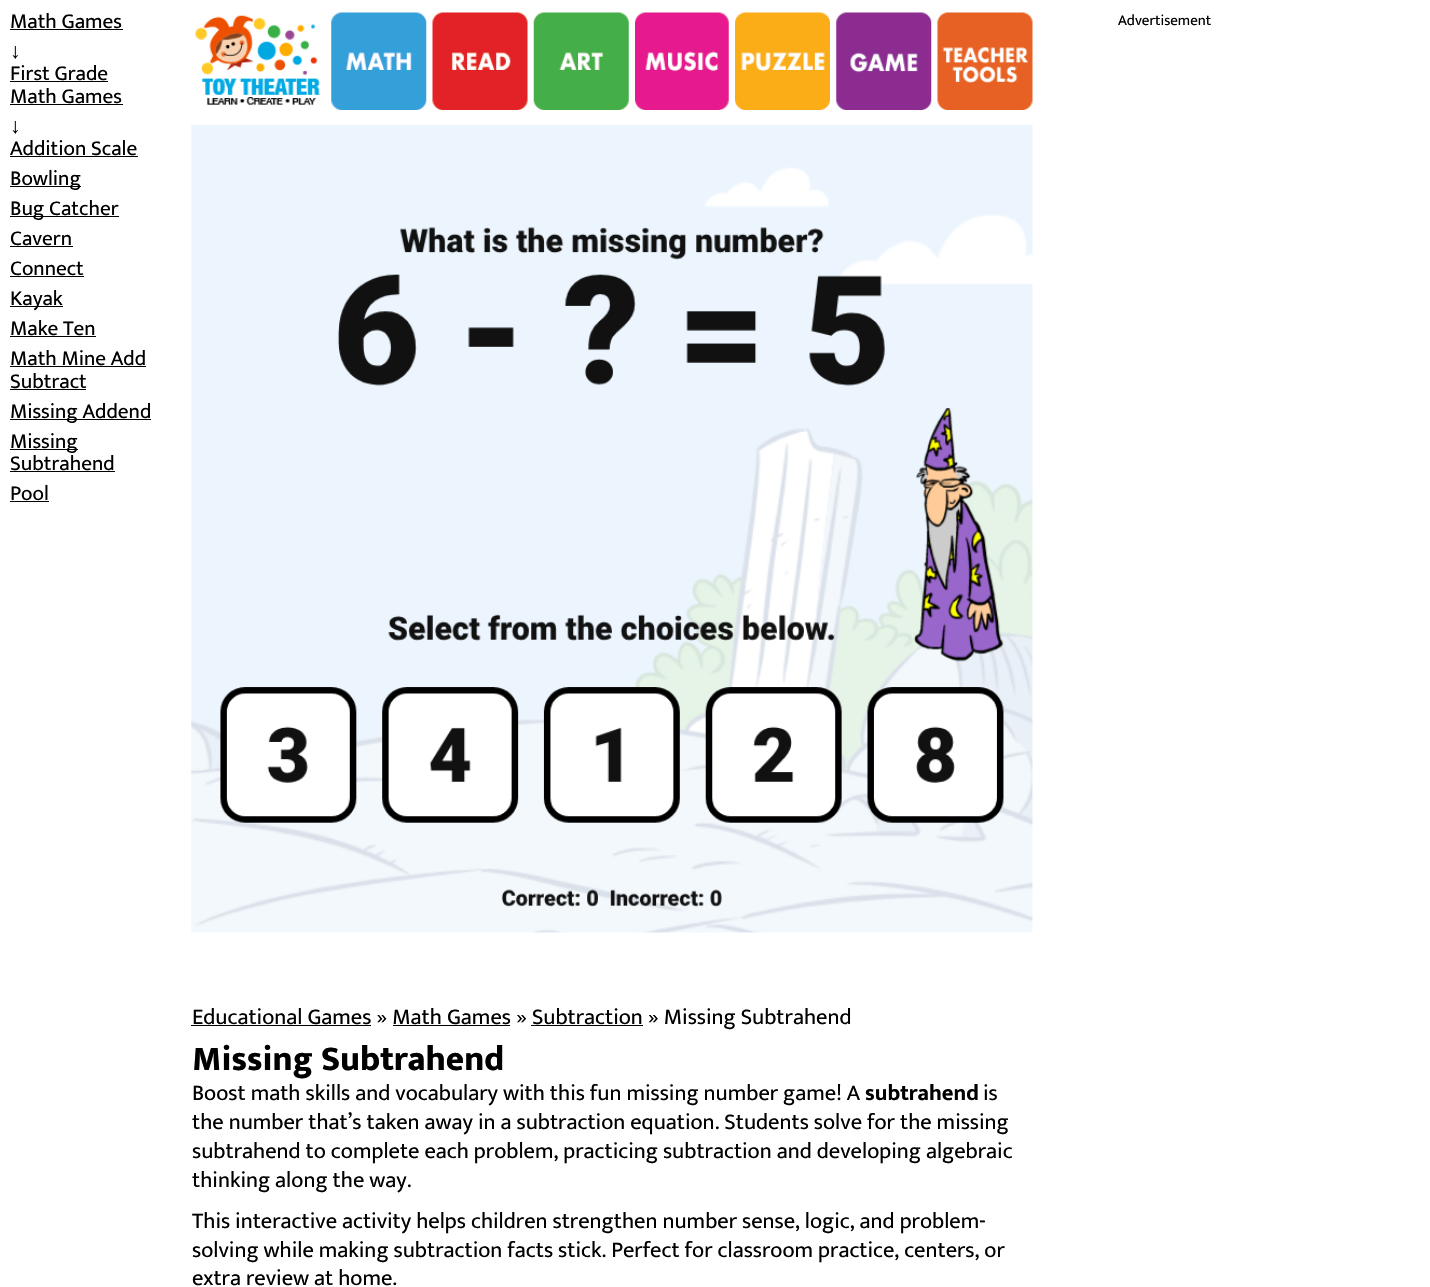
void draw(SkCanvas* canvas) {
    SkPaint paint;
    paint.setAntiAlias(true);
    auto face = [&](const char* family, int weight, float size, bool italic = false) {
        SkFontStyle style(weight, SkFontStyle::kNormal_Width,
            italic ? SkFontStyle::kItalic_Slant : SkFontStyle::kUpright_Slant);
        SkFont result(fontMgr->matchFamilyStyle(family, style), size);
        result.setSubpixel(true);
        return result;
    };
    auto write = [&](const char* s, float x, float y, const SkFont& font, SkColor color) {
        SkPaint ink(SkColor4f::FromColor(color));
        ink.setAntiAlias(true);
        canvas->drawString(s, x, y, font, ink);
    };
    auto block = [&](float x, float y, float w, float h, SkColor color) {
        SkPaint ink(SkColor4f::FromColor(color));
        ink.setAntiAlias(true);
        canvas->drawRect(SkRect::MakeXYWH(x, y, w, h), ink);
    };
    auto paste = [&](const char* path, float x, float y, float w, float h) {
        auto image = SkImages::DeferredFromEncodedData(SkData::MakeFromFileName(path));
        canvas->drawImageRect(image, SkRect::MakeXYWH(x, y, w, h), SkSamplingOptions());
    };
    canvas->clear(SK_ColorWHITE);
    auto kFont1 = face("Mukta", 400, 21.25f);
    write("Math Games", 10, 28, kFont1, SK_ColorBLACK);
    block(10, 29, 113, 1, SK_ColorBLACK);
    auto kFont2 = face("Liberation Sans", 400, 21.25f);
    write("↓", 10, 58, kFont2, SK_ColorBLACK);
    write("First Grade", 10, 80, kFont1, SK_ColorBLACK);
    block(10, 81, 98, 1, SK_ColorBLACK);
    write("Math Games", 10, 103, kFont1, SK_ColorBLACK);
    block(10, 104, 113, 1, SK_ColorBLACK);
    write("↓", 10, 133, kFont2, SK_ColorBLACK);
    write("Addition Scale", 10, 155, kFont1, SK_ColorBLACK);
    block(10, 156, 128, 1, SK_ColorBLACK);
    block(10, 186, 71, 1, SK_ColorBLACK);
    write("Bowling", 10, 185, kFont1, SK_ColorBLACK);
    block(10, 216, 109, 1, SK_ColorBLACK);
    write("Bug Catcher", 10, 215, kFont1, SK_ColorBLACK);
    write("Cavern", 10, 245, kFont1, SK_ColorBLACK);
    block(10, 246, 63, 1, SK_ColorBLACK);
    write("Connect", 10, 275, kFont1, SK_ColorBLACK);
    block(10, 276, 74, 1, SK_ColorBLACK);
    block(10, 306, 53, 1, SK_ColorBLACK);
    write("Kayak", 10, 305, kFont1, SK_ColorBLACK);
    write("Make Ten", 10, 335, kFont1, SK_ColorBLACK);
    block(10, 336, 86, 1, SK_ColorBLACK);
    write("Math Mine Add", 10, 365, kFont1, SK_ColorBLACK);
    block(10, 366, 136, 1, SK_ColorBLACK);
    write("Subtract", 10, 388, kFont1, SK_ColorBLACK);
    block(10, 389, 76, 1, SK_ColorBLACK);
    block(10, 419, 141, 1, SK_ColorBLACK);
    write("Missing Addend", 10, 418, kFont1, SK_ColorBLACK);
    block(10, 449, 68, 1, SK_ColorBLACK);
    write("Missing", 10, 448, kFont1, SK_ColorBLACK);
    write("Subtrahend", 10, 470, kFont1, SK_ColorBLACK);
    block(10, 471, 105, 1, SK_ColorBLACK);
    write("Pool", 10, 500, kFont1, SK_ColorBLACK);
    block(10, 501, 39, 1, SK_ColorBLACK);
    auto kFont3 = face("Mukta", 400, 15);
    write("Advertisement", 1118, 25, kFont3, SK_ColorBLACK);
    paste("pic1.png", 195, 15, 125, 90);
    paste("pic2.png", 331, 12, 96, 98);
    paste("pic3.png", 432, 12, 96, 98);
    paste("pic4.png", 533, 12, 96, 98);
    paste("pic5.png", 635, 12, 94, 98);
    paste("pic6.png", 735, 12, 95, 98);
    paste("pic7.png", 836, 12, 96, 98);
    paste("pic8.png", 937, 12, 96, 98);
    paste("pic9.png", 191, 125, 842, 808);
    block(191, 1025, 180, 1, SK_ColorBLACK);
    auto kFont4 = face("Mukta", 400, 22.5f);
    write("Educational Games » Math Games » Subtraction » Missing Subtrahend", 192, 1024, kFont4, SK_ColorBLACK);
    block(393, 1025, 117, 1, SK_ColorBLACK);
    block(531, 1025, 112, 1, SK_ColorBLACK);
    auto kFont5 = face("Mukta", 800, 35);
    write("Missing Subtrahend", 192, 1070, kFont5, SK_ColorBLACK);
    write("Boost math skills and vocabulary with this fun missing number game! A", 192, 1100, kFont4, SK_ColorBLACK);
    auto kFont6 = face("Mukta", 700, 22.5f);
    write("subtrahend", 865, 1100, kFont6, SK_ColorBLACK);
    write("is", 983, 1100, kFont4, SK_ColorBLACK);
    write("the number that’s taken away in a subtraction equation. Students solve for the missing", 192, 1129, kFont4, SK_ColorBLACK);
    write("subtrahend to complete each problem, practicing subtraction and developing algebraic", 192, 1158, kFont4, SK_ColorBLACK);
    write("thinking along the way.", 192, 1187, kFont4, SK_ColorBLACK);
    write("This interactive activity helps children strengthen number sense, logic, and problem-", 192, 1228, kFont4, SK_ColorBLACK);
    write("solving while making subtraction facts stick. Perfect for classroom practice, centers, or", 192, 1257, kFont4, SK_ColorBLACK);
    write("extra review at home.", 192, 1285, kFont4, SK_ColorBLACK);
}
